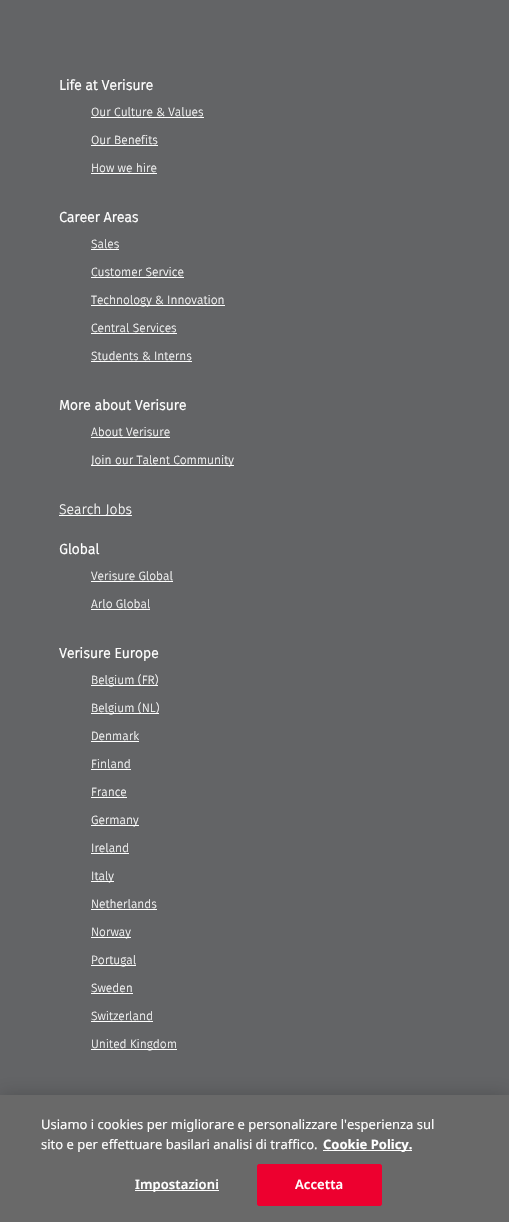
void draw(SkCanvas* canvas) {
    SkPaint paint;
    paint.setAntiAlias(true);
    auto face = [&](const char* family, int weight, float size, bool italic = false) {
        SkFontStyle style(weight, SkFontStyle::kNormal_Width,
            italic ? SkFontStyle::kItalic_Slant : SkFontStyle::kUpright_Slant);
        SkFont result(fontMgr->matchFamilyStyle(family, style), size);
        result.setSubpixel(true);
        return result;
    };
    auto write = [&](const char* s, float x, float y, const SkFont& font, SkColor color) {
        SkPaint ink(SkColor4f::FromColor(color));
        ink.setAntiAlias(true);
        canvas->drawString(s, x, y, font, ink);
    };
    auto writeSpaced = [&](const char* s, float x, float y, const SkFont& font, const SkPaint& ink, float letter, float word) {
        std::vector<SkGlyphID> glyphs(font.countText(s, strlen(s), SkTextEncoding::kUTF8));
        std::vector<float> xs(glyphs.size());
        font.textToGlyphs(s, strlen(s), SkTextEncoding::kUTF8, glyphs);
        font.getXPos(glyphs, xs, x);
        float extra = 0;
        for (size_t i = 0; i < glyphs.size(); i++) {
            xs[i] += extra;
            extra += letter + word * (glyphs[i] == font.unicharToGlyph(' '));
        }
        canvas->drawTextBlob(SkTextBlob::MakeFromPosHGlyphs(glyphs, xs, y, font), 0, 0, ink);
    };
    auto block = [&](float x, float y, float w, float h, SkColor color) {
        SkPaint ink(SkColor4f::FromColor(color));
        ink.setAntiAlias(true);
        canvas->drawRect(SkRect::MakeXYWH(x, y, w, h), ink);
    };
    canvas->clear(SkColorSetRGB(99, 100, 102));
    auto kFont1 = face("Fira Sans", 700, 14);
    write("Life at Verisure", 59, 90, kFont1, SK_ColorWHITE);
    auto kFont2 = face("Fira Sans", 300, 12);
    write("Our Culture & Values", 91, 116, kFont2, SK_ColorWHITE);
    block(91, 117, 113, 1, SK_ColorWHITE);
    write("Our Benefits", 91, 144, kFont2, SK_ColorWHITE);
    block(91, 145, 67, 1, SK_ColorWHITE);
    write("How we hire", 91, 172, kFont2, SK_ColorWHITE);
    block(91, 173, 66, 1, SK_ColorWHITE);
    write("Career Areas", 59, 222, kFont1, SK_ColorWHITE);
    write("Sales", 91, 248, kFont2, SK_ColorWHITE);
    block(91, 249, 28, 1, SK_ColorWHITE);
    write("Customer Service", 91, 276, kFont2, SK_ColorWHITE);
    block(91, 277, 93, 1, SK_ColorWHITE);
    block(91, 305, 134, 1, SK_ColorWHITE);
    write("Technology & Innovation", 91, 304, kFont2, SK_ColorWHITE);
    write("Central Services", 91, 332, kFont2, SK_ColorWHITE);
    block(91, 333, 86, 1, SK_ColorWHITE);
    write("Students & Interns", 91, 360, kFont2, SK_ColorWHITE);
    block(91, 361, 101, 1, SK_ColorWHITE);
    write("More about Verisure", 59, 410, kFont1, SK_ColorWHITE);
    write("About Verisure", 91, 436, kFont2, SK_ColorWHITE);
    block(91, 437, 79, 1, SK_ColorWHITE);
    block(91, 465, 143, 1, SK_ColorWHITE);
    write("Join our Talent Community", 91, 464, kFont2, SK_ColorWHITE);
    block(59, 515, 73, 1, SK_ColorWHITE);
    auto kFont3 = face("Fira Sans", 300, 14);
    write("Search Jobs", 59, 514, kFont3, SK_ColorWHITE);
    write("Global", 59, 554, kFont1, SK_ColorWHITE);
    write("Verisure Global", 91, 580, kFont2, SK_ColorWHITE);
    block(91, 581, 82, 1, SK_ColorWHITE);
    write("Arlo Global", 91, 608, kFont2, SK_ColorWHITE);
    block(91, 609, 59, 1, SK_ColorWHITE);
    write("Verisure Europe", 59, 658, kFont1, SK_ColorWHITE);
    block(91, 685, 67, 1, SK_ColorWHITE);
    write("Belgium (FR)", 91, 684, kFont2, SK_ColorWHITE);
    block(91, 713, 68, 1, SK_ColorWHITE);
    write("Belgium (NL)", 91, 712, kFont2, SK_ColorWHITE);
    write("Denmark", 91, 740, kFont2, SK_ColorWHITE);
    block(91, 741, 48, 1, SK_ColorWHITE);
    write("Finland", 91, 768, kFont2, SK_ColorWHITE);
    block(91, 769, 40, 1, SK_ColorWHITE);
    write("France", 91, 796, kFont2, SK_ColorWHITE);
    block(91, 797, 36, 1, SK_ColorWHITE);
    block(91, 825, 48, 1, SK_ColorWHITE);
    write("Germany", 91, 824, kFont2, SK_ColorWHITE);
    write("Ireland", 91, 852, kFont2, SK_ColorWHITE);
    block(91, 853, 38, 1, SK_ColorWHITE);
    block(91, 881, 23, 1, SK_ColorWHITE);
    write("Italy", 91, 880, kFont2, SK_ColorWHITE);
    write("Netherlands", 91, 908, kFont2, SK_ColorWHITE);
    block(91, 909, 66, 1, SK_ColorWHITE);
    block(91, 937, 40, 1, SK_ColorWHITE);
    write("Norway", 91, 936, kFont2, SK_ColorWHITE);
    block(91, 965, 45, 1, SK_ColorWHITE);
    write("Portugal", 91, 964, kFont2, SK_ColorWHITE);
    write("Sweden", 91, 992, kFont2, SK_ColorWHITE);
    block(91, 993, 42, 1, SK_ColorWHITE);
    write("Switzerland", 91, 1020, kFont2, SK_ColorWHITE);
    block(91, 1021, 62, 1, SK_ColorWHITE);
    block(91, 1049, 86, 1, SK_ColorWHITE);
    write("United Kingdom", 91, 1048, kFont2, SK_ColorWHITE);
    paint.setColor(SkColorSetARGB(51, 0, 0, 0));
    paint.setMaskFilter(SkMaskFilter::MakeBlur(kNormal_SkBlurStyle, 9));
    canvas->drawRect(SkRect::MakeXYWH(0, 1095, 509, 127), paint);
    paint.setMaskFilter(nullptr);
    block(0, 1095, 509, 127, SkColorSetRGB(105, 105, 105));
    auto kFont4 = face("Noto Sans", 400, 13);
    write("Usiamo i cookies per migliorare e personalizzare l'esperienza sul", 41, 1129, kFont4, SK_ColorWHITE);
    write("sito e per effettuare basilari analisi di traffico.", 41, 1149, kFont4, SK_ColorWHITE);
    block(323, 1150, 89, 1, SK_ColorWHITE);
    auto kFont5 = face("Noto Sans", 700, 13);
    write("Cookie Policy.", 323, 1149, kFont5, SK_ColorWHITE);
    block(135, 1190, 84, 1, SK_ColorWHITE);
    auto kFont6 = face("Noto Sans", 600, 13);
    paint.setColor(SK_ColorWHITE);
    writeSpaced("Impostazioni", 135, 1189, kFont6, paint, 0.1f, 0);
    paint.setColor(SkColorSetRGB(237, 0, 47));
    canvas->drawRoundRect(SkRect::MakeXYWH(257.5f, 1164.5f, 124, 41), 1.5f, 1.5f, paint);
    paint.setStyle(SkPaint::kStroke_Style);
    paint.setStrokeWidth(1);
    canvas->drawRoundRect(SkRect::MakeXYWH(257.5f, 1164.5f, 124, 41), 1.5f, 1.5f, paint);
    paint.setStyle(SkPaint::kFill_Style);
    paint.setColor(SK_ColorWHITE);
    writeSpaced("Accetta", 295, 1189, kFont6, paint, 0.1f, 0);
}
